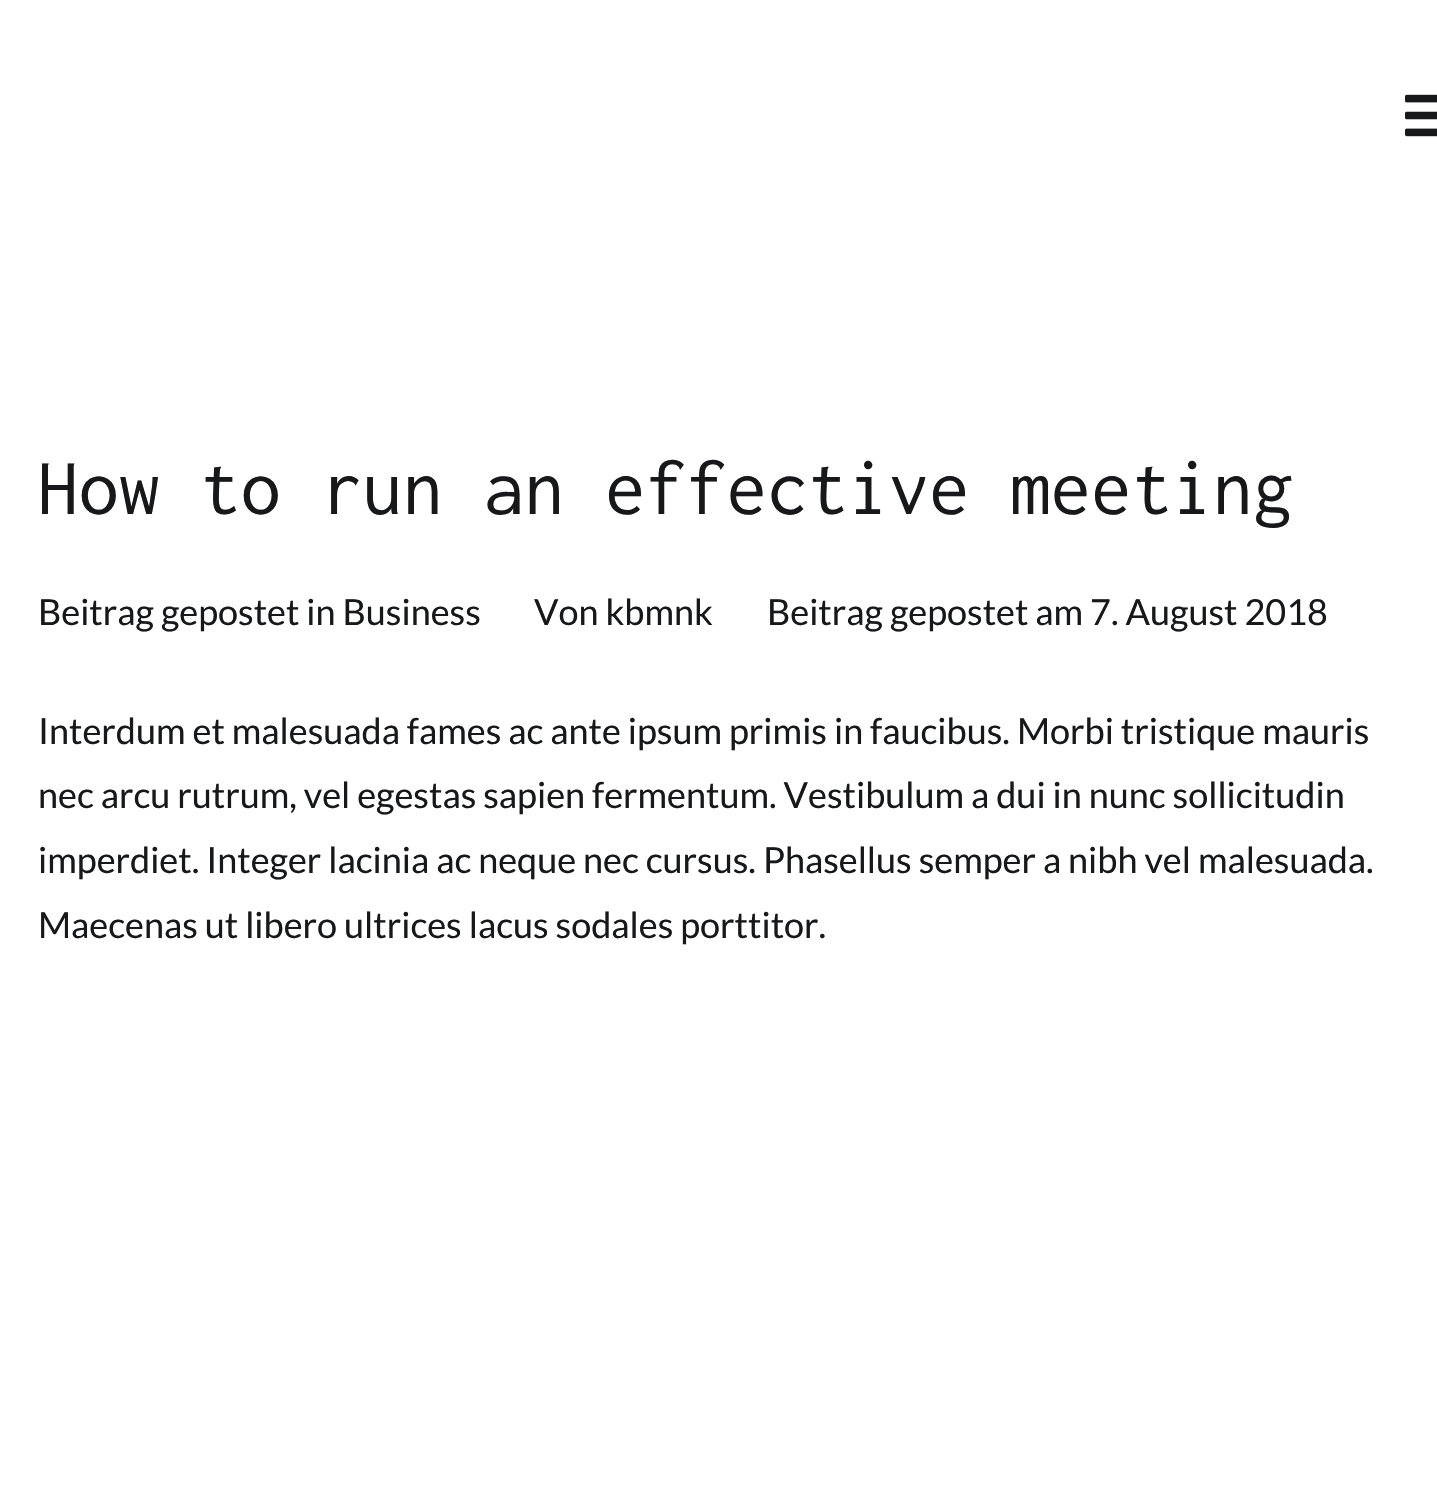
void draw(SkCanvas* canvas) {
    SkPaint paint;
    paint.setAntiAlias(true);
    auto face = [&](const char* family, int weight, float size, bool italic = false) {
        SkFontStyle style(weight, SkFontStyle::kNormal_Width,
            italic ? SkFontStyle::kItalic_Slant : SkFontStyle::kUpright_Slant);
        SkFont result(fontMgr->matchFamilyStyle(family, style), size);
        result.setSubpixel(true);
        return result;
    };
    auto write = [&](const char* s, float x, float y, const SkFont& font, SkColor color) {
        SkPaint ink(SkColor4f::FromColor(color));
        ink.setAntiAlias(true);
        canvas->drawString(s, x, y, font, ink);
    };
    auto paste = [&](const char* path, float x, float y, float w, float h) {
        auto image = SkImages::DeferredFromEncodedData(SkData::MakeFromFileName(path));
        canvas->drawImageRect(image, SkRect::MakeXYWH(x, y, w, h), SkSamplingOptions());
    };
    canvas->clear(SK_ColorWHITE);
    paste("pic1.png", 1405, 94, 32, 43);
    auto kFont1 = face("Inconsolata", 400, 81);
    write("How to run an effective meeting", 38, 514, kFont1, SkColorSetRGB(22, 24, 26));
    auto kFont2 = face("Lato", 400, 36);
    write("Beitrag gepostet in Business", 38, 625, kFont2, SkColorSetRGB(22, 24, 26));
    write("Von kbmnk", 534, 625, kFont2, SkColorSetRGB(22, 24, 26));
    write("Beitrag gepostet am 7. August 2018", 767, 625, kFont2, SkColorSetRGB(22, 24, 26));
    write("Interdum et malesuada fames ac ante ipsum primis in faucibus. Morbi tristique mauris", 38, 744, kFont2, SkColorSetRGB(22, 24, 26));
    write("nec arcu rutrum, vel egestas sapien fermentum. Vestibulum a dui in nunc sollicitudin", 38, 808, kFont2, SkColorSetRGB(22, 24, 26));
    write("imperdiet. Integer lacinia ac neque nec cursus. Phasellus semper a nibh vel malesuada.", 38, 873, kFont2, SkColorSetRGB(22, 24, 26));
    write("Maecenas ut libero ultrices lacus sodales porttitor.", 38, 938, kFont2, SkColorSetRGB(22, 24, 26));
}
